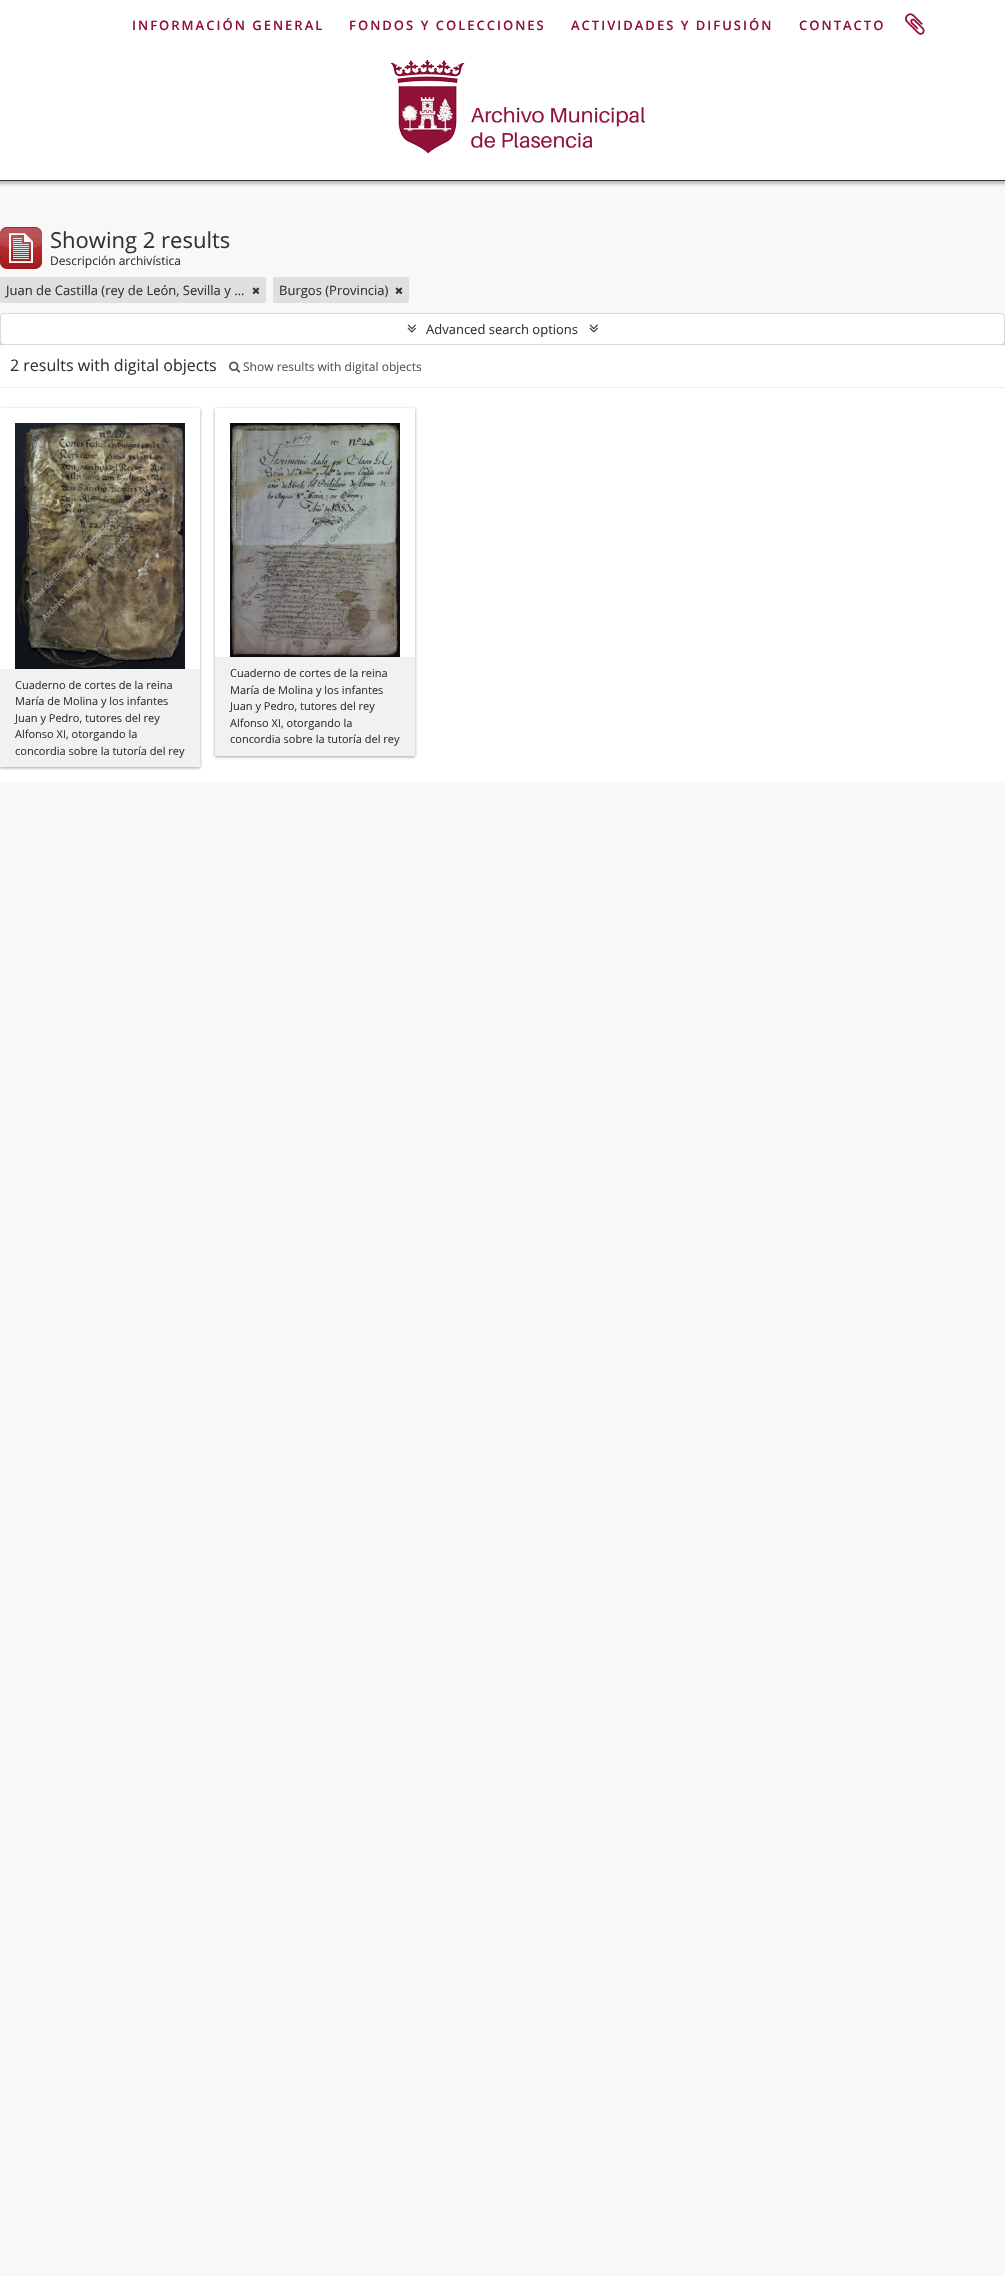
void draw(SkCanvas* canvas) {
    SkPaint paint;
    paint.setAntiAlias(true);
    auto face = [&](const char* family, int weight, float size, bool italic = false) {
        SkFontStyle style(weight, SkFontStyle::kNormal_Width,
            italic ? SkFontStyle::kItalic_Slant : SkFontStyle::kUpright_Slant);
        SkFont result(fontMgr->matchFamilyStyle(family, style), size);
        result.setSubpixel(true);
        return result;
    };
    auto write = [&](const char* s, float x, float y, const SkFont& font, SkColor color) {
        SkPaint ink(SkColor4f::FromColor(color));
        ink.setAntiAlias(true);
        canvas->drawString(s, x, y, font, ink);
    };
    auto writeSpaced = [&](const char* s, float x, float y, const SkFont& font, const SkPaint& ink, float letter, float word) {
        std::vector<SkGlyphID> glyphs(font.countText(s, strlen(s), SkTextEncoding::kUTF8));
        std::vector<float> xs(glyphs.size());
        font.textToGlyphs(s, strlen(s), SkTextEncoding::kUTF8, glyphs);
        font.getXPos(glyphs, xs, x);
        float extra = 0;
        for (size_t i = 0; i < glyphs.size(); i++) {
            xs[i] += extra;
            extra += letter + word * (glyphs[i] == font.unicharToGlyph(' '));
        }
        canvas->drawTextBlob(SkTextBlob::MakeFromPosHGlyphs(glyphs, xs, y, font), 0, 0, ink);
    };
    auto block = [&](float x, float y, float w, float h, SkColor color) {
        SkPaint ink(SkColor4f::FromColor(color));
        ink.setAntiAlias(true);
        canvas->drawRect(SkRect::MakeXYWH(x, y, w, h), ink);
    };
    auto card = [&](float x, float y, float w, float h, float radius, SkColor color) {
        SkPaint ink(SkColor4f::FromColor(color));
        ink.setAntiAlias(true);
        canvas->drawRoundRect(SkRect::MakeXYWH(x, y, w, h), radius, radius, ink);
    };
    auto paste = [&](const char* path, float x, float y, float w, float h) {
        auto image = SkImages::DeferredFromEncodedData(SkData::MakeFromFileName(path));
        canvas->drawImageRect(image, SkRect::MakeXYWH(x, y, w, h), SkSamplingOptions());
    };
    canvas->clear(SkColorSetRGB(248, 248, 248));
    paint.setColor(SkColorSetARGB(64, 0, 0, 0));
    paint.setMaskFilter(SkMaskFilter::MakeBlur(kNormal_SkBlurStyle, 1.5f));
    canvas->drawRect(SkRect::MakeXYWH(-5, 3, 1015, 181), paint);
    paint.setMaskFilter(nullptr);
    block(0, 0, 1005, 180, SK_ColorWHITE);
    block(0, 180, 1005, 1, SkColorSetRGB(51, 51, 51));
    auto kFont1 = face("Open Sans", 600, 13);
    paint.setColor(SkColorSetRGB(144, 18, 55));
    writeSpaced("INFORMACIÓN GENERAL", 132, 30, kFont1, paint, 2, 0);
    writeSpaced("FONDOS Y COLECCIONES", 349, 30, kFont1, paint, 2, 0);
    writeSpaced("ACTIVIDADES Y DIFUSIÓN", 571, 30, kFont1, paint, 2, 0);
    writeSpaced("CONTACTO", 799, 30, kFont1, paint, 2, 0);
    paste("pic1.png", 905, 13, 20, 22);
    paste("pic2.png", 390, 59, 255, 95);
    paste("pic3.png", 0, 227, 42, 42);
    auto kFont2 = face("Open Sans", 400, 22);
    write("Showing 2 results", 50, 248, kFont2, SkColorSetRGB(51, 51, 51));
    auto kFont3 = face("Open Sans", 400, 12);
    write("Descripción archivística", 50, 265, kFont3, SkColorSetRGB(51, 51, 51));
    card(0, 277, 266, 26, 2, SkColorSetRGB(223, 223, 223));
    auto kFont4 = face("Open Sans", 400, 13);
    write("Juan de Castilla (rey de León, Sevilla y …", 6, 295, kFont4, SkColorSetRGB(51, 51, 51));
    paste("pic4.png", 252, 287, 8, 7);
    card(273, 277, 136, 26, 2, SkColorSetRGB(223, 223, 223));
    write("Burgos (Provincia)", 279, 295, kFont4, SkColorSetRGB(51, 51, 51));
    paste("pic4.png", 395, 287, 8, 7);
    paint.setColor(SkColorSetARGB(51, 0, 0, 0));
    paint.setMaskFilter(SkMaskFilter::MakeBlur(kNormal_SkBlurStyle, 0.5f));
    canvas->drawRoundRect(SkRect::MakeXYWH(0, 314, 1005, 32), 4, 4, paint);
    paint.setMaskFilter(nullptr);
    paint.setColor(SK_ColorWHITE);
    canvas->drawRoundRect(SkRect::MakeXYWH(0.5f, 313.5f, 1004, 31), 3.5f, 3.5f, paint);
    paint.setStyle(SkPaint::kStroke_Style);
    paint.setStrokeWidth(1);
    paint.setColor(SkColorSetRGB(217, 217, 217));
    canvas->drawRoundRect(SkRect::MakeXYWH(0.5f, 313.5f, 1004, 31), 3.5f, 3.5f, paint);
    paste("pic5.png", 407, 324, 9, 9);
    write("Advanced search options", 426, 334, kFont4, SkColorSetRGB(51, 51, 51));
    paste("pic5.png", 589, 324, 9, 9);
    card(0, 345, 1005, 437, 4, SK_ColorWHITE);
    block(0, 387, 1005, 1, SkColorSetRGB(238, 238, 238));
    auto kFont5 = face("Open Sans", 400, 16);
    write("2 results with digital objects", 10, 371, kFont5, SkColorSetRGB(51, 51, 51));
    paste("pic6.png", 229, 361, 12, 12);
    write("Show results with digital objects", 243, 371, kFont3, SkColorSetRGB(85, 85, 85));
    canvas->save();
    canvas->clipPath(SkPathBuilder(SkPathFillType::kEvenOdd).moveTo(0, 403).lineTo(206, 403).lineTo(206, 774).lineTo(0, 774).close().moveTo(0, 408).lineTo(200, 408).lineTo(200, 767).lineTo(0, 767).close().detach(), true);
    paint.setStyle(SkPaint::kFill_Style);
    paint.setColor(SkColorSetARGB(102, 25, 25, 25));
    paint.setMaskFilter(SkMaskFilter::MakeBlur(kNormal_SkBlurStyle, 1.5f));
    canvas->drawRect(SkRect::MakeXYWH(0, 409, 200, 359), paint);
    paint.setMaskFilter(nullptr);
    canvas->restore();
    paste("pic7.png", 15, 423, 170, 246);
    block(0, 669, 200, 98, SkColorSetRGB(242, 240, 240));
    auto kFont6 = face("Open Sans", 400, 11);
    write("Cuaderno de cortes de la reina", 15, 689, kFont6, SkColorSetRGB(51, 51, 51));
    write("María de Molina y los infantes", 15, 705, kFont6, SkColorSetRGB(51, 51, 51));
    write("Juan y Pedro, tutores del rey", 15, 722, kFont6, SkColorSetRGB(51, 51, 51));
    write("Alfonso XI, otorgando la", 15, 738, kFont6, SkColorSetRGB(51, 51, 51));
    write("concordia sobre la tutoría del rey", 15, 755, kFont6, SkColorSetRGB(51, 51, 51));
    canvas->save();
    canvas->clipPath(SkPathBuilder(SkPathFillType::kEvenOdd).moveTo(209, 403).lineTo(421, 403).lineTo(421, 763).lineTo(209, 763).close().moveTo(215, 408).lineTo(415, 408).lineTo(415, 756).lineTo(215, 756).close().detach(), true);
    paint.setMaskFilter(SkMaskFilter::MakeBlur(kNormal_SkBlurStyle, 1.5f));
    canvas->drawRect(SkRect::MakeXYWH(215, 409, 200, 348), paint);
    paint.setMaskFilter(nullptr);
    canvas->restore();
    paste("pic8.png", 230, 423, 170, 234);
    block(215, 657, 200, 99, SkColorSetRGB(242, 240, 240));
    write("Cuaderno de cortes de la reina", 230, 677, kFont6, SkColorSetRGB(51, 51, 51));
    write("María de Molina y los infantes", 230, 694, kFont6, SkColorSetRGB(51, 51, 51));
    write("Juan y Pedro, tutores del rey", 230, 710, kFont6, SkColorSetRGB(51, 51, 51));
    write("Alfonso XI, otorgando la", 230, 727, kFont6, SkColorSetRGB(51, 51, 51));
    write("concordia sobre la tutoría del rey", 230, 743, kFont6, SkColorSetRGB(51, 51, 51));
}
